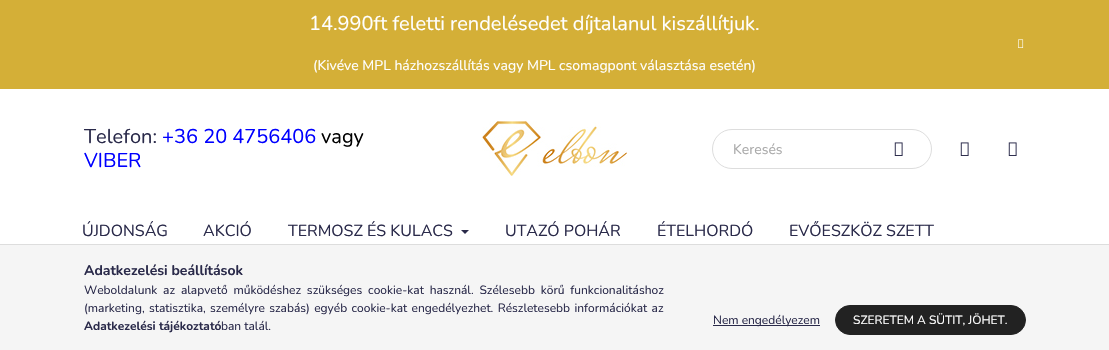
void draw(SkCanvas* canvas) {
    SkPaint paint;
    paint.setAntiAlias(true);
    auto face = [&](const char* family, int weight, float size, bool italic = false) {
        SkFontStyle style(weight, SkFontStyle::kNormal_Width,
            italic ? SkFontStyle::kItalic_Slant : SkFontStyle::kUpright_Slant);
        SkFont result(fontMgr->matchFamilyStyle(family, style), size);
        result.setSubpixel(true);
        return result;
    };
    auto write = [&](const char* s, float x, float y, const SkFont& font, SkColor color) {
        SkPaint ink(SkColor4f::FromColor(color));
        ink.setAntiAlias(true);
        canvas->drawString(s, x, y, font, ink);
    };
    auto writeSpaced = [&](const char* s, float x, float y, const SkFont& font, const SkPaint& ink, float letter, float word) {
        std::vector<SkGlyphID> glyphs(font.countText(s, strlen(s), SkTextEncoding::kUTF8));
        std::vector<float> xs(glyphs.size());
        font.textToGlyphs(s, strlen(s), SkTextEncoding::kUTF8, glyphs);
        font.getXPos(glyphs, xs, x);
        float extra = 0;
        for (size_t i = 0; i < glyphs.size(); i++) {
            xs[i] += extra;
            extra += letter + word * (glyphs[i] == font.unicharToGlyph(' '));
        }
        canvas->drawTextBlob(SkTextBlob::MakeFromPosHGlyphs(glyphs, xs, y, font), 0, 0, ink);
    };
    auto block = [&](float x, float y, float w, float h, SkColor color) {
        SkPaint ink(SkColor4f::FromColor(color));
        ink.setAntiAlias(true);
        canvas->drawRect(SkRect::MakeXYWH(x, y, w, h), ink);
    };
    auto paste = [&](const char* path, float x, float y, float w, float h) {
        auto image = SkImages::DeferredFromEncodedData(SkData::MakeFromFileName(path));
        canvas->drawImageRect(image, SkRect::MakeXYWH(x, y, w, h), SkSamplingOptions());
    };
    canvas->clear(SK_ColorWHITE);
    block(0, 0, 1109, 89, SkColorSetRGB(212, 175, 55));
    auto kFont1 = face("Nunito", 400, 20);
    write("14.990ft feletti rendelésedet díjtalanul kiszállítjuk.", 309, 30, kFont1, SK_ColorWHITE);
    paste("pic1.png", 1018, 39, 6, 9);
    auto kFont2 = face("Nunito", 400, 14);
    write("(Kivéve MPL házhozszállítás vagy MPL csomagpont választása esetén)", 313, 70, kFont2, SK_ColorWHITE);
    write("Telefon:", 84, 143, kFont1, SkColorSetRGB(42, 42, 74));
    write("+36 20 4756406", 162, 143, kFont1, SkColorSetRGB(0, 0, 255));
    write("vagy", 321, 143, kFont1, SK_ColorBLACK);
    write("VIBER", 84, 167, kFont1, SkColorSetRGB(0, 0, 255));
    paste("pic2.png", 482, 121, 145, 55);
    paint.setStyle(SkPaint::kStroke_Style);
    paint.setStrokeWidth(1);
    paint.setColor(SkColorSetRGB(221, 221, 221));
    canvas->drawRoundRect(SkRect::MakeXYWH(712.5f, 129.5f, 219, 39), 19.5f, 19.5f, paint);
    write("Keresés", 733, 154, kFont2, SkColorSetRGB(170, 170, 170));
    paste("pic3.png", 894, 142, 9, 14);
    paste("pic3.png", 960, 142, 9, 14);
    paste("pic3.png", 1008, 142, 9, 14);
    auto kFont3 = face("Nunito", 400, 16);
    write("ÚJDONSÁG", 82, 236, kFont3, SkColorSetRGB(42, 42, 74));
    write("AKCIÓ", 203, 236, kFont3, SkColorSetRGB(42, 42, 74));
    write("TERMOSZ ÉS KULACS", 288, 236, kFont3, SkColorSetRGB(42, 42, 74));
    paint.setStyle(SkPaint::kFill_Style);
    paint.setColor(SkColorSetRGB(42, 42, 74));
    canvas->drawPath(SkPathBuilder().moveTo(461, 230).lineTo(469, 230).lineTo(465, 234).close().detach(), paint);
    write("UTAZÓ POHÁR", 505, 236, kFont3, SkColorSetRGB(42, 42, 74));
    write("ÉTELHORDÓ", 657, 236, kFont3, SkColorSetRGB(42, 42, 74));
    write("EVŐESZKÖZ SZETT", 789, 236, kFont3, SkColorSetRGB(42, 42, 74));
    block(0, 245, 1109, 105, SkColorSetRGB(245, 245, 245));
    block(0, 244, 1109, 1, SkColorSetRGB(221, 221, 221));
    auto kFont4 = face("Nunito", 700, 14);
    write("Adatkezelési beállítások", 84, 275, kFont4, SkColorSetRGB(42, 42, 74));
    auto kFont5 = face("Nunito", 400, 12);
    writeSpaced("Weboldalunk az alapvető működéshez szükséges cookie-kat használ. Szélesebb körű funkcionalitáshoz", 84, 294, kFont5, paint, 0, 2.75f);
    writeSpaced("(marketing, statisztika, személyre szabás) egyéb cookie-kat engedélyezhet. Részletesebb információkat az", 84, 312, kFont5, paint, 0, 1.25f);
    auto kFont6 = face("Nunito", 700, 12);
    write("Adatkezelési tájékoztató", 84, 330, kFont6, SkColorSetRGB(42, 42, 74));
    write("ban talál.", 221, 330, kFont5, SkColorSetRGB(42, 42, 74));
    block(713, 325, 107, 1, SkColorSetRGB(42, 42, 74));
    write("Nem engedélyezem", 713, 324, kFont5, SkColorSetRGB(42, 42, 74));
    paint.setColor(SkColorSetRGB(34, 34, 34));
    canvas->drawRoundRect(SkRect::MakeXYWH(835.5f, 305.5f, 190, 29), 14.5f, 14.5f, paint);
    paint.setStyle(SkPaint::kStroke_Style);
    canvas->drawRoundRect(SkRect::MakeXYWH(835.5f, 305.5f, 190, 29), 14.5f, 14.5f, paint);
    write("SZERETEM A SÜTIT, JÖHET.", 853, 324, kFont5, SK_ColorWHITE);
}
